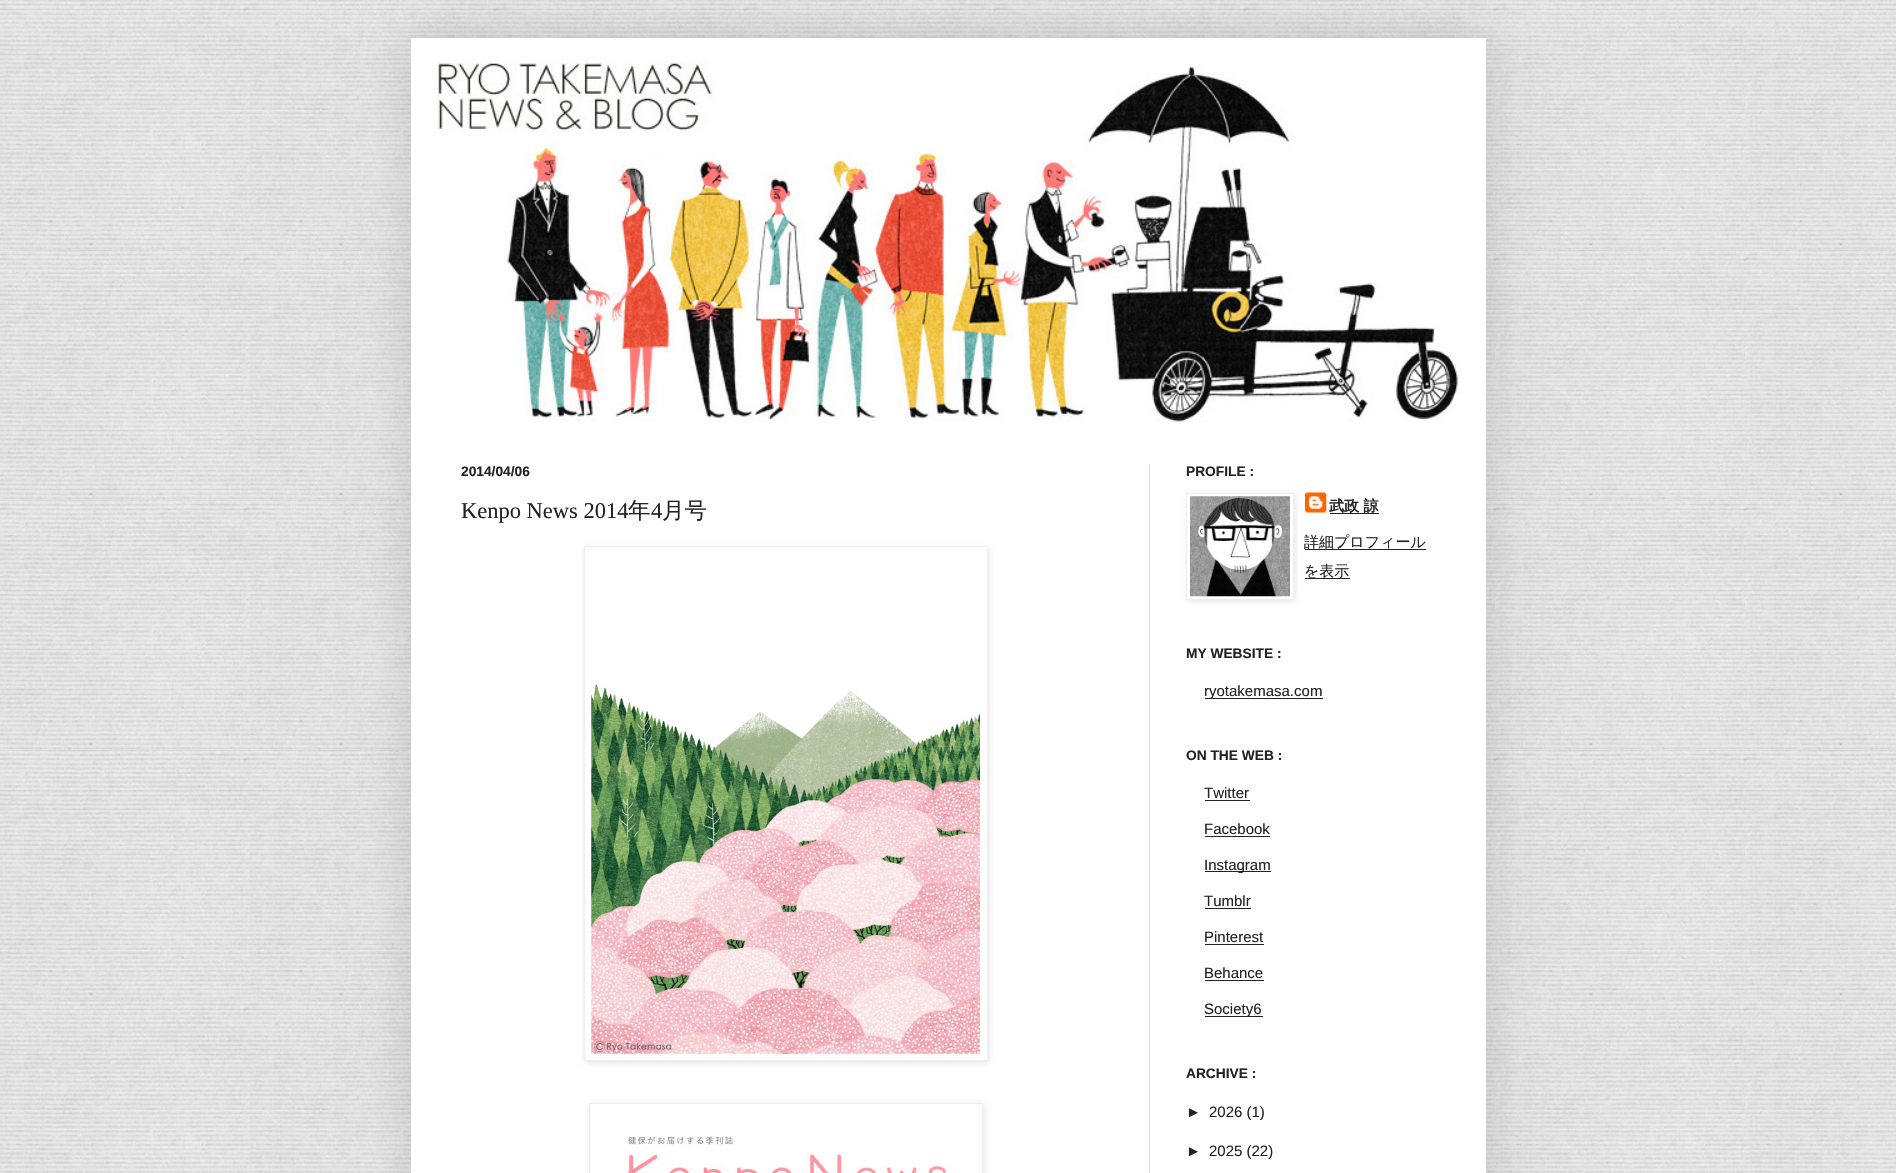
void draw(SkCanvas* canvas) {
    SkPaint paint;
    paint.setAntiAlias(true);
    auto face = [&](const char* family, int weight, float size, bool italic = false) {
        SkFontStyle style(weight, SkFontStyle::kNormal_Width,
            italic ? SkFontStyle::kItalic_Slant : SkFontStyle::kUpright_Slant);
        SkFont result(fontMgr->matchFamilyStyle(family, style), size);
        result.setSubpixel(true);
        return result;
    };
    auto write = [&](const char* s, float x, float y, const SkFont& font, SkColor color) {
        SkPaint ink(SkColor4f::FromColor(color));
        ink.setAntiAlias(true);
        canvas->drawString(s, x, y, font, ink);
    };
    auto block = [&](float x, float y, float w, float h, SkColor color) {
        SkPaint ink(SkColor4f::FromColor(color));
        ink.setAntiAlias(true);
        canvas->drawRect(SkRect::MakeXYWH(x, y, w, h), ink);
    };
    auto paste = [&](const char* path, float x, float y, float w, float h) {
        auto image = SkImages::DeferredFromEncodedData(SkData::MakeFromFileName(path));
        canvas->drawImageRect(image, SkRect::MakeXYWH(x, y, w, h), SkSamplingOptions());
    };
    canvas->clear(SK_ColorWHITE);
    paste("pic1.png", 0, 500, 1896, 673);
    paste("pic2.png", 0, 0, 1896, 500);
    paint.setColor(SkColorSetARGB(38, 0, 0, 0));
    paint.setMaskFilter(SkMaskFilter::MakeBlur(kNormal_SkBlurStyle, 25));
    canvas->drawRect(SkRect::MakeXYWH(411, 38, 1075, 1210), paint);
    paint.setMaskFilter(nullptr);
    block(411, 38, 1075, 1135, SK_ColorWHITE);
    paste("pic3.png", 434, 60, 1027, 362);
    block(1149, 464, 1, 709, SkColorSetRGB(223, 223, 223));
    auto kFont1 = face("Liberation Sans", 700, 13.75f);
    write("2014/04/06", 461, 476, kFont1, SkColorSetRGB(34, 34, 34));
    auto kFont2 = face("Liberation Serif", 400, 22.5f);
    write("Kenpo News 2014", 461, 518, kFont2, SkColorSetRGB(34, 34, 34));
    auto kFont3 = face("WenQuanYi Zen Hei", 500, 22.5f);
    write("年", 628, 518, kFont3, SkColorSetRGB(34, 34, 34));
    write("4", 651, 518, kFont2, SkColorSetRGB(34, 34, 34));
    write("月号", 662, 518, kFont3, SkColorSetRGB(34, 34, 34));
    paint.setColor(SkColorSetARGB(26, 0, 0, 0));
    paint.setMaskFilter(SkMaskFilter::MakeBlur(kNormal_SkBlurStyle, 3));
    canvas->drawRect(SkRect::MakeXYWH(585, 548, 404, 515), paint);
    paint.setMaskFilter(nullptr);
    paint.setColor(SK_ColorWHITE);
    canvas->drawRect(SkRect::MakeXYWH(584.5f, 546.5f, 403, 514), paint);
    paint.setStyle(SkPaint::kStroke_Style);
    paint.setStrokeWidth(1);
    paint.setColor(SkColorSetRGB(238, 238, 238));
    canvas->drawRect(SkRect::MakeXYWH(584.5f, 546.5f, 403, 514), paint);
    paste("pic4.png", 591, 683, 389, 371);
    paint.setStyle(SkPaint::kFill_Style);
    paint.setColor(SkColorSetARGB(26, 0, 0, 0));
    paint.setMaskFilter(SkMaskFilter::MakeBlur(kNormal_SkBlurStyle, 3));
    canvas->drawRect(SkRect::MakeXYWH(590, 1104, 394, 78), paint);
    paint.setMaskFilter(nullptr);
    paint.setColor(SK_ColorWHITE);
    canvas->drawRect(SkRect::MakeXYWH(589.5f, 1103.5f, 393, 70), paint);
    paint.setStyle(SkPaint::kStroke_Style);
    paint.setColor(SkColorSetRGB(238, 238, 238));
    canvas->drawRect(SkRect::MakeXYWH(589.5f, 1103.5f, 393, 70), paint);
    paste("pic5.png", 627, 1136, 323, 37);
    write("PROFILE :", 1186, 476, kFont1, SkColorSetRGB(34, 34, 34));
    paint.setStyle(SkPaint::kFill_Style);
    paint.setColor(SkColorSetARGB(26, 0, 0, 0));
    paint.setMaskFilter(SkMaskFilter::MakeBlur(kNormal_SkBlurStyle, 3));
    canvas->drawRect(SkRect::MakeXYWH(1188, 494, 107, 107), paint);
    paint.setMaskFilter(nullptr);
    paint.setColor(SK_ColorWHITE);
    canvas->drawRect(SkRect::MakeXYWH(1186.5f, 493.5f, 107, 106), paint);
    paint.setStyle(SkPaint::kStroke_Style);
    paint.setColor(SkColorSetRGB(238, 238, 238));
    canvas->drawRect(SkRect::MakeXYWH(1186.5f, 493.5f, 107, 106), paint);
    paste("pic6.png", 1190, 496, 100, 101);
    paste("pic7.png", 1305, 492, 22, 21);
    block(1330, 513, 49, 1, SkColorSetRGB(34, 34, 34));
    auto kFont4 = face("WenQuanYi Zen Hei", 700, 15);
    write("武政 諒", 1329, 511, kFont4, SkColorSetRGB(34, 34, 34));
    auto kFont5 = face("WenQuanYi Zen Hei", 500, 15);
    write("詳細プロフィール", 1304, 547, kFont5, SkColorSetRGB(34, 34, 34));
    block(1305, 549, 121, 1, SkColorSetRGB(34, 34, 34));
    block(1305, 578, 45, 1, SkColorSetRGB(34, 34, 34));
    write("を表示", 1304, 576, kFont5, SkColorSetRGB(34, 34, 34));
    write("MY WEBSITE :", 1186, 658, kFont1, SkColorSetRGB(34, 34, 34));
    block(1205, 698, 118, 1, SkColorSetRGB(34, 34, 34));
    auto kFont6 = face("Liberation Sans", 400, 15);
    write("ryotakemasa.com", 1204, 696, kFont6, SkColorSetRGB(34, 34, 34));
    write("ON THE WEB :", 1186, 760, kFont1, SkColorSetRGB(34, 34, 34));
    write("Twitter", 1204, 798, kFont6, SkColorSetRGB(34, 34, 34));
    block(1205, 800, 45, 1, SkColorSetRGB(34, 34, 34));
    write("Facebook", 1204, 834, kFont6, SkColorSetRGB(34, 34, 34));
    block(1205, 836, 65, 1, SkColorSetRGB(34, 34, 34));
    block(1205, 871, 66, 1, SkColorSetRGB(34, 34, 34));
    write("Instagram", 1204, 870, kFont6, SkColorSetRGB(34, 34, 34));
    write("Tumblr", 1204, 906, kFont6, SkColorSetRGB(34, 34, 34));
    block(1205, 908, 46, 1, SkColorSetRGB(34, 34, 34));
    write("Pinterest", 1204, 942, kFont6, SkColorSetRGB(34, 34, 34));
    block(1205, 944, 59, 1, SkColorSetRGB(34, 34, 34));
    write("Behance", 1204, 978, kFont6, SkColorSetRGB(34, 34, 34));
    block(1205, 980, 59, 1, SkColorSetRGB(34, 34, 34));
    block(1205, 1016, 58, 1, SkColorSetRGB(34, 34, 34));
    write("Society6", 1204, 1014, kFont6, SkColorSetRGB(34, 34, 34));
    write("ARCHIVE :", 1186, 1078, kFont1, SkColorSetRGB(34, 34, 34));
    write("►", 1186, 1117, kFont6, SkColorSetRGB(34, 34, 34));
    write("2026 (1)", 1209, 1117, kFont6, SkColorSetRGB(34, 34, 34));
    write("►", 1186, 1156, kFont6, SkColorSetRGB(34, 34, 34));
    write("2025 (22)", 1209, 1156, kFont6, SkColorSetRGB(34, 34, 34));
}
